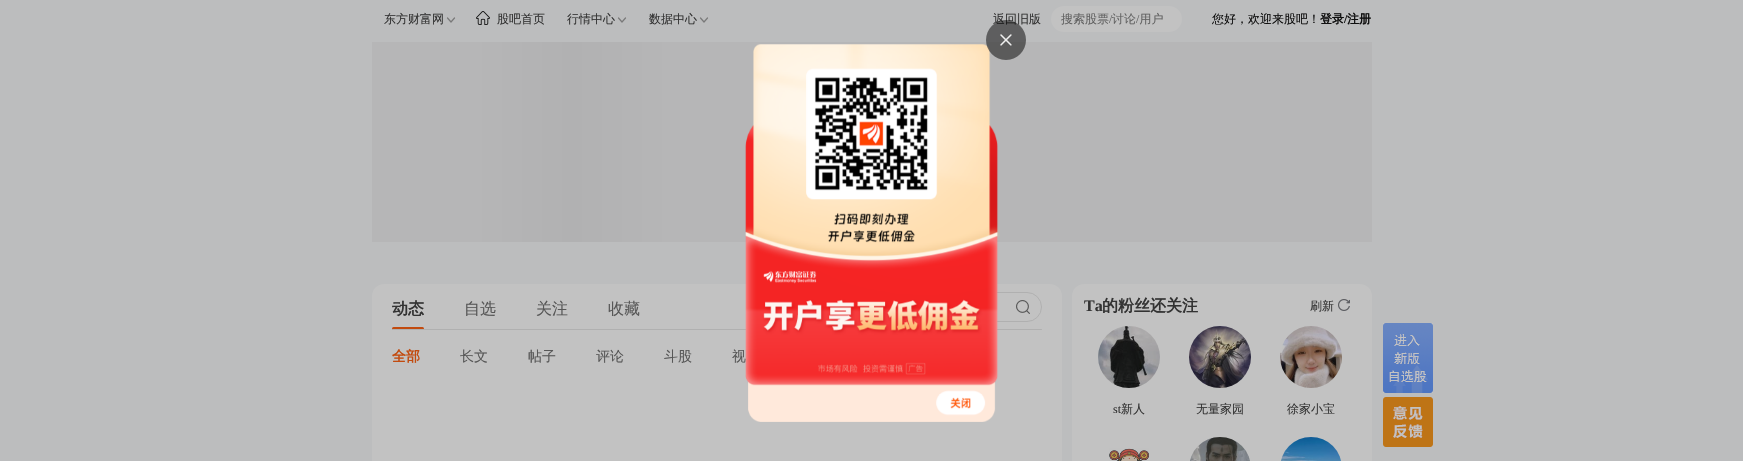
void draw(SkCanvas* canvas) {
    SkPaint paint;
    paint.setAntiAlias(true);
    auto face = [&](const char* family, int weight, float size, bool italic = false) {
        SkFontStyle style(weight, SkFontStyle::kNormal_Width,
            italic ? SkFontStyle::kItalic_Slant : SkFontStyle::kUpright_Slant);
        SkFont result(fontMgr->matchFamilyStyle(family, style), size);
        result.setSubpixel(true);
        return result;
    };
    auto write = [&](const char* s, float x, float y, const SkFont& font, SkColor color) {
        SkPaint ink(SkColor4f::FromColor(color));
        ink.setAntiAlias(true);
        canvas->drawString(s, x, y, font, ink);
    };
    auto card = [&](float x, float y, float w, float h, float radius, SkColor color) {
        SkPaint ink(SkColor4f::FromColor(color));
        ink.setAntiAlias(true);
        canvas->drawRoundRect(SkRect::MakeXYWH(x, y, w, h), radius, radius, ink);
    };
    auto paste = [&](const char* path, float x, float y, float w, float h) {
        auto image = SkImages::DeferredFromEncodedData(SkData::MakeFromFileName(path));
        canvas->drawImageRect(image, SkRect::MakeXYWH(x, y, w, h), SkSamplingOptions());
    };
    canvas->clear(SkColorSetRGB(188, 189, 190));
    auto kFont1 = face("WenQuanYi Zen Hei", 500, 12);
    write("东方财富网", 384, 23, kFont1, SkColorSetRGB(51, 51, 51));
    paint.setStyle(SkPaint::kStroke_Style);
    paint.setStrokeWidth(1.2f);
    paint.setStrokeCap(SkPaint::kRound_Cap);
    paint.setStrokeJoin(SkPaint::kRound_Join);
    paint.setColor(SkColorSetRGB(121, 121, 121));
    canvas->drawPath(SkPathBuilder().moveTo(447.5f, 18).lineTo(451, 22).lineTo(454.5f, 18).detach(), paint);
    paste("pic1.png", 476, 11, 14, 14);
    write("股吧首页", 497, 23, kFont1, SkColorSetRGB(51, 51, 51));
    write("行情中心", 567, 23, kFont1, SkColorSetRGB(51, 51, 51));
    canvas->drawPath(SkPathBuilder().moveTo(618.5f, 18).lineTo(622, 22).lineTo(625.5f, 18).detach(), paint);
    write("数据中心", 649, 23, kFont1, SkColorSetRGB(51, 51, 51));
    canvas->drawPath(SkPathBuilder().moveTo(700.5f, 18).lineTo(704, 22).lineTo(707.5f, 18).detach(), paint);
    write("返回旧版", 993, 23, kFont1, SkColorSetRGB(51, 51, 51));
    card(1051, 6, 131, 26, 13, SkColorSetRGB(194, 194, 194));
    write("搜索股票", 1061, 23, kFont1, SkColorSetRGB(97, 97, 97));
    auto kFont2 = face("Liberation Serif", 400, 12);
    write("/", 1109, 23, kFont2, SkColorSetRGB(97, 97, 97));
    write("讨论 用户", 1112, 23, kFont1, SkColorSetRGB(97, 97, 97));
    write("/", 1136, 23, kFont2, SkColorSetRGB(97, 97, 97));
    write("您好，欢迎来股吧！", 1212, 23, kFont1, SkColorSetRGB(15, 15, 15));
    auto kFont3 = face("WenQuanYi Zen Hei", 700, 12);
    write("登录", 1320, 23, kFont3, SkColorSetRGB(15, 15, 15));
    auto kFont4 = face("Liberation Serif", 700, 12);
    write("/", 1344, 23, kFont4, SkColorSetRGB(15, 15, 15));
    write("注册", 1347, 23, kFont3, SkColorSetRGB(15, 15, 15));
    paint.setStyle(SkPaint::kFill_Style);
    {
        const SkColor colors[] = {SkColorSetRGB(182, 182, 183), SkColorSetRGB(177, 177, 178), SkColorSetRGB(182, 182, 183)};
        const float stops[] = {0.1f, 0.2f, 0.3f};
        const SkPoint ends[] = {{372, 47}, {1372, 47}};
        paint.setShader(SkGradientShader::MakeLinear(ends, colors, stops, 3, SkTileMode::kClamp));
        paint.setAlpha(255);
    }
    canvas->drawRect(SkRect::MakeXYWH(372, 42, 1000, 200), paint);
    card(372, 284, 690, 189, 12, SkColorSetRGB(194, 194, 194));
    auto kFont5 = face("WenQuanYi Zen Hei", 700, 16);
    write("动态", 392, 314, kFont5, SkColorSetRGB(51, 51, 51));
    card(392, 327, 32, 3, 1.5f, SkColorSetRGB(194, 75, 15));
    auto kFont6 = face("WenQuanYi Zen Hei", 500, 16);
    write("自选", 464, 314, kFont6, SkColorSetRGB(87, 87, 87));
    write("关注", 536, 314, kFont6, SkColorSetRGB(87, 87, 87));
    write("收藏", 608, 314, kFont6, SkColorSetRGB(87, 87, 87));
    card(392, 329, 650, 1, 0.5f, SkColorSetRGB(176, 176, 176));
    paint.setStyle(SkPaint::kStroke_Style);
    paint.setStrokeWidth(1);
    paint.setStrokeCap(SkPaint::kButt_Cap);
    paint.setStrokeJoin(SkPaint::kMiter_Join);
    paint.setShader(nullptr);
    paint.setColor(SkColorSetRGB(176, 176, 176));
    canvas->drawRoundRect(SkRect::MakeXYWH(845.5f, 292.5f, 196, 29), 14.5f, 14.5f, paint);
    paste("pic2.png", 1016, 300, 14, 14);
    auto kFont7 = face("WenQuanYi Zen Hei", 700, 14);
    write("全部", 392, 361, kFont7, SkColorSetRGB(194, 75, 15));
    auto kFont8 = face("WenQuanYi Zen Hei", 500, 14);
    write("长文", 460, 361, kFont8, SkColorSetRGB(87, 87, 87));
    write("帖子", 528, 361, kFont8, SkColorSetRGB(87, 87, 87));
    write("评论", 596, 361, kFont8, SkColorSetRGB(87, 87, 87));
    write("斗股", 664, 361, kFont8, SkColorSetRGB(87, 87, 87));
    write("视", 732, 361, kFont8, SkColorSetRGB(87, 87, 87));
    card(1072, 284, 300, 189, 12, SkColorSetRGB(194, 194, 194));
    auto kFont9 = face("Liberation Serif", 700, 16);
    write("Ta", 1084, 311, kFont9, SkColorSetRGB(51, 51, 51));
    write("的粉丝还关注", 1102, 311, kFont5, SkColorSetRGB(51, 51, 51));
    write("刷新", 1310, 310, kFont1, SkColorSetRGB(51, 51, 51));
    paste("pic3.png", 1338, 299, 12, 12);
    paste("pic4.png", 1098, 326, 62, 62);
    write("st", 1113, 413, kFont2, SkColorSetRGB(51, 51, 51));
    write("新人", 1121, 413, kFont1, SkColorSetRGB(51, 51, 51));
    paste("pic5.png", 1189, 326, 62, 62);
    write("无量家园", 1196, 413, kFont1, SkColorSetRGB(51, 51, 51));
    paste("pic6.png", 1280, 326, 62, 62);
    write("徐家小宝", 1287, 413, kFont1, SkColorSetRGB(51, 51, 51));
    paste("pic7.png", 1109, 448, 40, 13);
    paste("pic8.png", 1190, 437, 60, 24);
    paste("pic9.png", 1281, 437, 60, 24);
    paste("pic11.png", 745, 44, 255, 378);
    paste("pic10.png", 986, 20, 40, 40);
    paste("pic12.png", 1383, 323, 50, 70);
    paste("pic13.png", 1383, 397, 50, 50);
}
